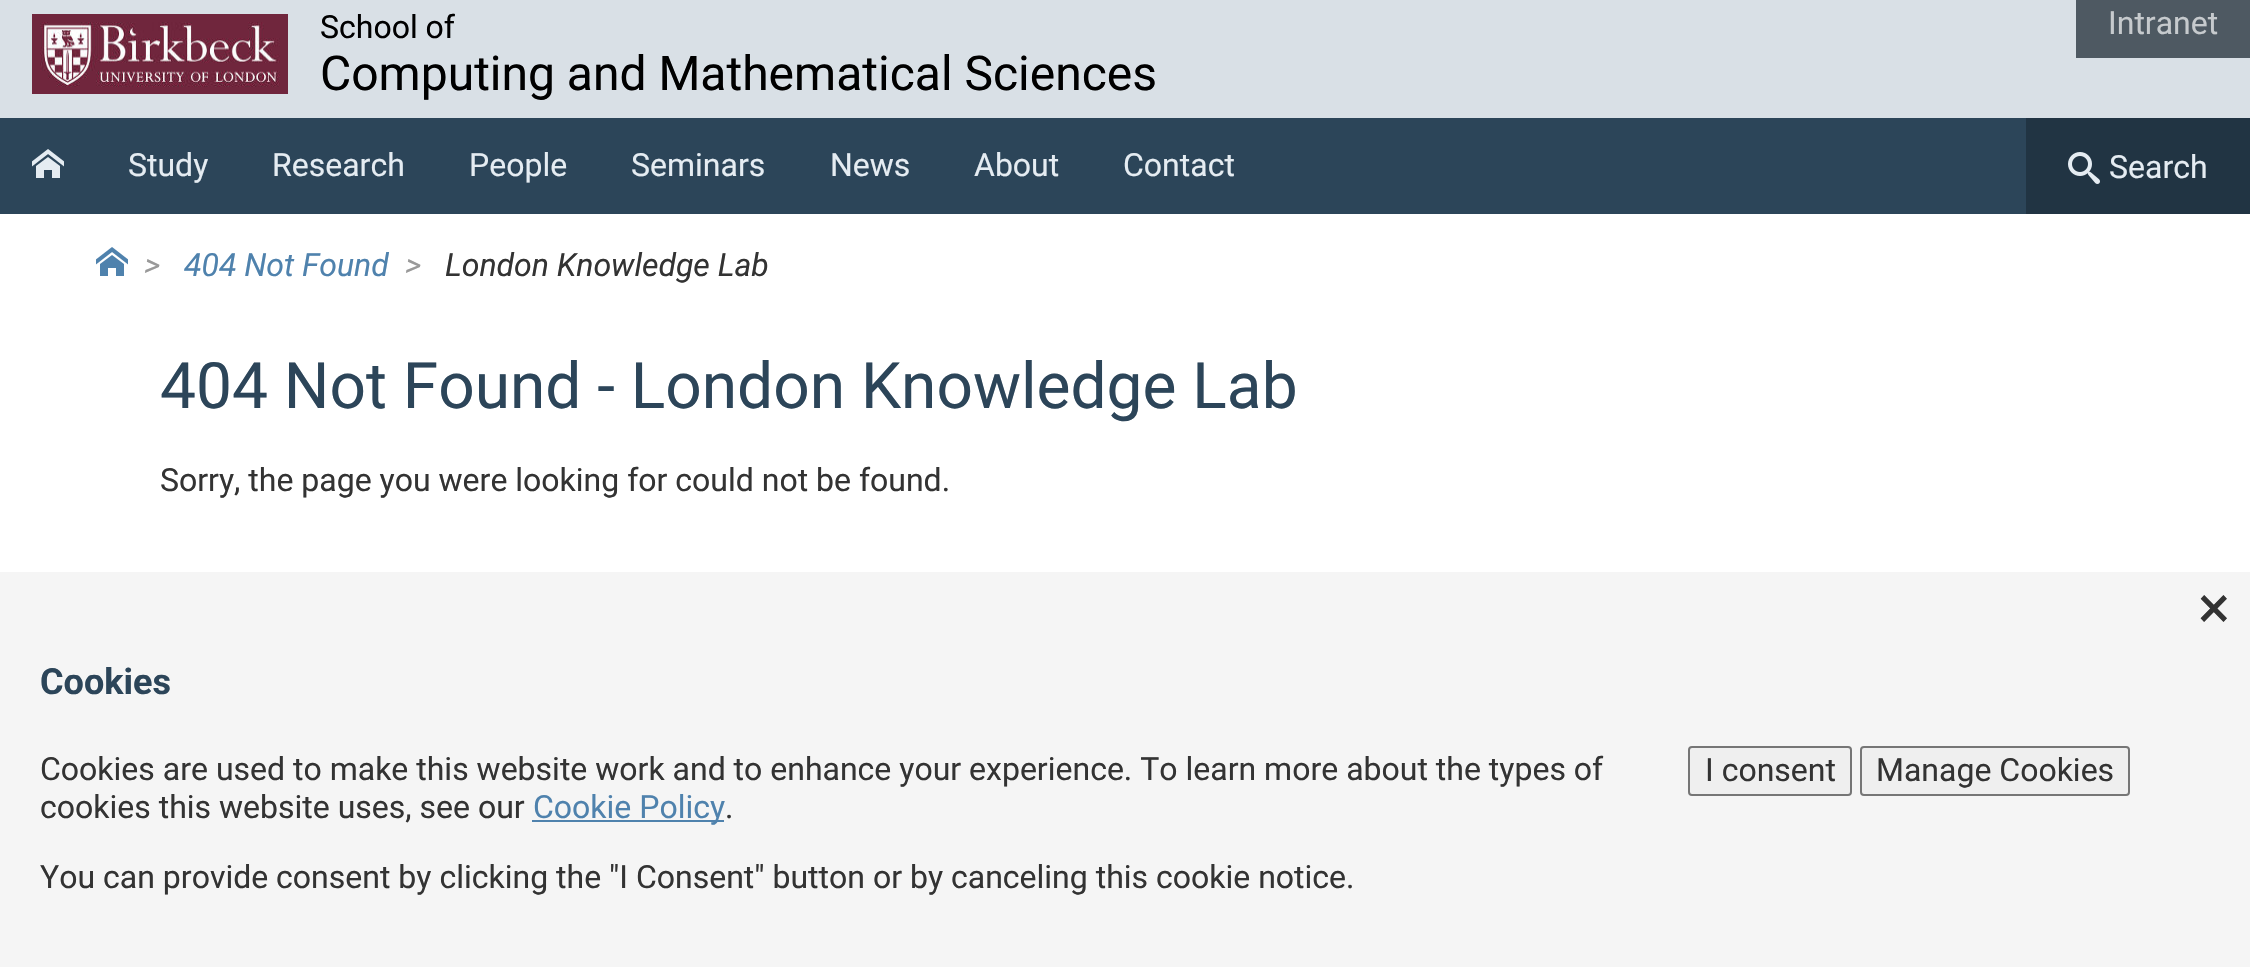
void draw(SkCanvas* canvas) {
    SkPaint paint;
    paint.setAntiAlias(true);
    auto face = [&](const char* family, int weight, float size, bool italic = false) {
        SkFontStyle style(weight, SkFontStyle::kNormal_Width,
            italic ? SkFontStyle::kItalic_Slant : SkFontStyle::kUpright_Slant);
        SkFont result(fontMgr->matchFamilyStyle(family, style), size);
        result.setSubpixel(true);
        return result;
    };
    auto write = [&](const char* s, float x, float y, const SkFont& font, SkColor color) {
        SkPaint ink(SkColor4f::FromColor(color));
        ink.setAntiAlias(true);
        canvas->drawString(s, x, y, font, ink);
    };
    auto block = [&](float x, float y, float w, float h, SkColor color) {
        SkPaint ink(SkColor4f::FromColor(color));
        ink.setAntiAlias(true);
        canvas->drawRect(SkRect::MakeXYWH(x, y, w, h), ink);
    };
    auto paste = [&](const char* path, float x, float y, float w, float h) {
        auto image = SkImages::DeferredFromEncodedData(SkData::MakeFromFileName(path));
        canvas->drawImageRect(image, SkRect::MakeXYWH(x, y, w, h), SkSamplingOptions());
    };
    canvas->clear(SK_ColorWHITE);
    block(0, 0, 2250, 118, SkColorSetRGB(217, 224, 230));
    paste("pic1.png", 32, 14, 256, 80);
    auto kFont1 = face("Roboto", 400, 32);
    write("School of", 320, 38, kFont1, SK_ColorBLACK);
    auto kFont2 = face("Roboto", 400, 48);
    write("Computing and Mathematical Sciences", 320, 90, kFont2, SK_ColorBLACK);
    block(2076, 0, 174, 58, SkColorSetRGB(78, 89, 98));
    write("Intranet", 2108, 34, kFont1, SkColorSetRGB(198, 202, 205));
    block(2026, 118, 224, 96, SkColorSetRGB(33, 52, 67));
    paste("pic2.png", 2068, 152, 32, 32);
    write("Search", 2109, 178, kFont1, SkColorSetRGB(229, 236, 242));
    block(0, 118, 2026, 96, SkColorSetRGB(44, 69, 89));
    paste("pic3.png", 32, 149, 32, 29);
    write("Study", 128, 176, kFont1, SkColorSetRGB(229, 236, 242));
    write("Research", 272, 176, kFont1, SkColorSetRGB(229, 236, 242));
    write("People", 469, 176, kFont1, SkColorSetRGB(229, 236, 242));
    write("Seminars", 631, 176, kFont1, SkColorSetRGB(229, 236, 242));
    write("News", 830, 176, kFont1, SkColorSetRGB(229, 236, 242));
    write("About", 974, 176, kFont1, SkColorSetRGB(229, 236, 242));
    write("Contact", 1123, 176, kFont1, SkColorSetRGB(229, 236, 242));
    paste("pic4.png", 96, 247, 32, 29);
    auto kFont3 = face("Roboto", 400, 32, true);
    write(">", 144, 276, kFont3, SkColorSetRGB(153, 153, 153));
    write("404 Not Found", 184, 276, kFont3, SkColorSetRGB(79, 130, 173));
    write(">", 405, 276, kFont3, SkColorSetRGB(153, 153, 153));
    write("London Knowledge Lab", 445, 276, kFont3, SkColorSetRGB(51, 51, 51));
    auto kFont4 = face("Roboto", 400, 64);
    write("404 Not Found - London Knowledge Lab", 160, 408, kFont4, SkColorSetRGB(44, 69, 89));
    write("Sorry, the page you were looking for could not be found.", 160, 491, kFont1, SkColorSetRGB(51, 51, 51));
    block(0, 572, 2250, 395, SkColorSetRGB(245, 245, 245));
    auto kFont5 = face("Roboto", 400, 60);
    write("×", 2198, 628, kFont5, SkColorSetRGB(51, 51, 51));
    auto kFont6 = face("Roboto", 700, 36);
    write("Cookies", 40, 694, kFont6, SkColorSetRGB(44, 69, 89));
    write("Cookies are used to make this website work and to enhance your experience. To learn more about the types of", 40, 780, kFont1, SkColorSetRGB(51, 51, 51));
    write("cookies this website uses, see our", 40, 818, kFont1, SkColorSetRGB(51, 51, 51));
    block(532, 820, 192, 2, SkColorSetRGB(79, 130, 173));
    write("Cookie Policy", 533, 818, kFont1, SkColorSetRGB(79, 130, 173));
    write(".", 725, 818, kFont1, SkColorSetRGB(51, 51, 51));
    write("You can provide consent by clicking the \"I Consent\" button or by canceling this cookie notice.", 40, 888, kFont1, SkColorSetRGB(51, 51, 51));
    paint.setColor(SkColorSetRGB(239, 239, 239));
    canvas->drawRoundRect(SkRect::MakeXYWH(1689, 747, 162, 48), 3, 3, paint);
    paint.setStyle(SkPaint::kStroke_Style);
    paint.setStrokeWidth(2);
    paint.setColor(SkColorSetRGB(118, 118, 118));
    canvas->drawRoundRect(SkRect::MakeXYWH(1689, 747, 162, 48), 3, 3, paint);
    write("I consent", 1705, 781, kFont1, SkColorSetRGB(51, 51, 51));
    paint.setStyle(SkPaint::kFill_Style);
    paint.setColor(SkColorSetRGB(239, 239, 239));
    canvas->drawRoundRect(SkRect::MakeXYWH(1861, 747, 268, 48), 3, 3, paint);
    paint.setStyle(SkPaint::kStroke_Style);
    paint.setColor(SkColorSetRGB(118, 118, 118));
    canvas->drawRoundRect(SkRect::MakeXYWH(1861, 747, 268, 48), 3, 3, paint);
    write("Manage Cookies", 1876, 781, kFont1, SkColorSetRGB(51, 51, 51));
}
